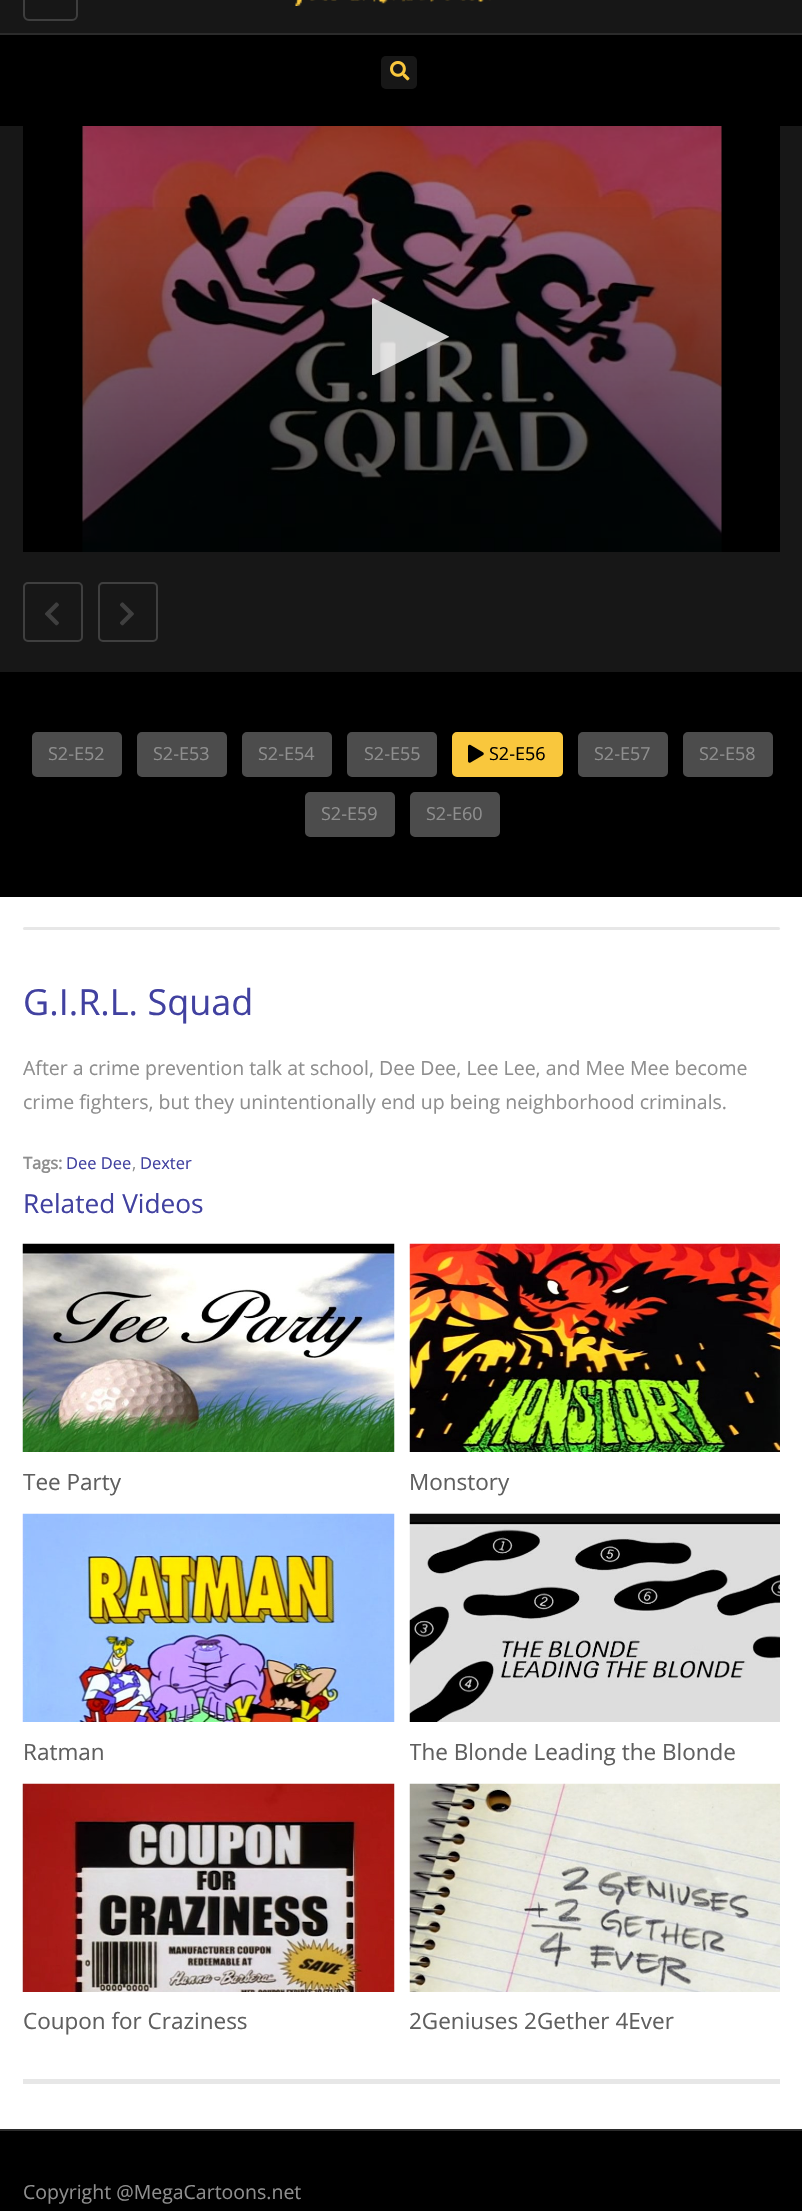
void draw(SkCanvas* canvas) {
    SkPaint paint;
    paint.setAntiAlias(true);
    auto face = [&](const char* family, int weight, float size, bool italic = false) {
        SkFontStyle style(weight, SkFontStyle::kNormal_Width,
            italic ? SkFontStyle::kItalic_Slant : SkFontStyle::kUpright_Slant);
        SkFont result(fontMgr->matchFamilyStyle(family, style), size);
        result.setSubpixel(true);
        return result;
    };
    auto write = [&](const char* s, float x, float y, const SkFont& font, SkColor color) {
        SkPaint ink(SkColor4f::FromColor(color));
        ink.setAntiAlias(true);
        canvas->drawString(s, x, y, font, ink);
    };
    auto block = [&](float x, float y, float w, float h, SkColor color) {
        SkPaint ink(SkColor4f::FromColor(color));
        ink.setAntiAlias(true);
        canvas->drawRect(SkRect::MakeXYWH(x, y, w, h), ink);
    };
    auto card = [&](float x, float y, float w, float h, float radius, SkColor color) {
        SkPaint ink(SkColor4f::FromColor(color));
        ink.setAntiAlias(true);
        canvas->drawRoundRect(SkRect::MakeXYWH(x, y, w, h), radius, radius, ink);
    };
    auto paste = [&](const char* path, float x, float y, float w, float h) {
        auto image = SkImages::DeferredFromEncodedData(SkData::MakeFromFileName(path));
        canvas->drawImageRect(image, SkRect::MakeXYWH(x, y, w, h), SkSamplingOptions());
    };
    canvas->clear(SK_ColorWHITE);
    block(0, 0, 802, 33, SkColorSetRGB(23, 23, 23));
    block(0, 33, 802, 2, SkColorSetRGB(43, 43, 43));
    paint.setStyle(SkPaint::kStroke_Style);
    paint.setStrokeWidth(2);
    paint.setColor(SkColorSetRGB(62, 62, 62));
    canvas->drawRoundRect(SkRect::MakeXYWH(24, -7, 53, 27), 5, 5, paint);
    paste("pic1.png", 295, 0, 196, 6);
    block(0, 35, 802, 91, SK_ColorBLACK);
    card(381, 56, 36, 33, 5, SkColorSetRGB(23, 23, 23));
    paste("pic2.png", 390, 61, 20, 20);
    block(0, 126, 802, 546, SkColorSetRGB(23, 23, 23));
    block(23, 126, 757, 426, SK_ColorBLACK);
    paste("pic3.png", 82, 126, 640, 426);
    paint.setStyle(SkPaint::kFill_Style);
    {
        const SkColor colors[] = {SkColorSetARGB(0, 0, 0, 0), SkColorSetARGB(102, 0, 0, 0), SkColorSetARGB(102, 0, 0, 0)};
        const float stops[] = {0, 0.77f, 1};
        const SkPoint ends[] = {{401, 192}, {401, 552}};
        paint.setShader(SkGradientShader::MakeLinear(ends, colors, stops, 3, SkTileMode::kClamp));
        paint.setAlpha(255);
    }
    canvas->drawRect(SkRect::MakeXYWH(82, 207, 640, 345), paint);
    paint.setShader(nullptr);
    paint.setColor(SkColorSetARGB(204, 255, 255, 255));
    canvas->drawPath(SkPathBuilder().moveTo(374, 375).cubicTo(373, 375, 372, 375, 372, 375).lineTo(372, 299).lineTo(373, 298).lineTo(448, 336).cubicTo(449, 336, 449, 337, 449, 337).close().detach(), paint);
    paint.setStyle(SkPaint::kStroke_Style);
    paint.setColor(SkColorSetRGB(63, 63, 63));
    canvas->drawRoundRect(SkRect::MakeXYWH(24, 583, 58, 58), 4, 4, paint);
    paste("pic4.png", 45, 602, 14, 24);
    canvas->drawRoundRect(SkRect::MakeXYWH(99, 583, 58, 58), 4, 4, paint);
    paste("pic5.png", 120, 602, 14, 24);
    block(0, 672, 802, 225, SK_ColorBLACK);
    paint.setStyle(SkPaint::kFill_Style);
    paint.setColor(SkColorSetRGB(76, 76, 76));
    canvas->drawRoundRect(SkRect::MakeXYWH(33, 733, 88, 43), 4, 4, paint);
    paint.setStyle(SkPaint::kStroke_Style);
    canvas->drawRoundRect(SkRect::MakeXYWH(33, 733, 88, 43), 4, 4, paint);
    auto kFont1 = face("Open Sans", 400, 18);
    write("S2-E52", 48, 760, kFont1, SkColorSetRGB(142, 142, 142));
    paint.setStyle(SkPaint::kFill_Style);
    canvas->drawRoundRect(SkRect::MakeXYWH(138, 733, 88, 43), 4, 4, paint);
    paint.setStyle(SkPaint::kStroke_Style);
    canvas->drawRoundRect(SkRect::MakeXYWH(138, 733, 88, 43), 4, 4, paint);
    write("S2-E53", 153, 760, kFont1, SkColorSetRGB(142, 142, 142));
    paint.setStyle(SkPaint::kFill_Style);
    canvas->drawRoundRect(SkRect::MakeXYWH(243, 733, 88, 43), 4, 4, paint);
    paint.setStyle(SkPaint::kStroke_Style);
    canvas->drawRoundRect(SkRect::MakeXYWH(243, 733, 88, 43), 4, 4, paint);
    write("S2-E54", 258, 760, kFont1, SkColorSetRGB(142, 142, 142));
    paint.setStyle(SkPaint::kFill_Style);
    canvas->drawRoundRect(SkRect::MakeXYWH(348, 733, 88, 43), 4, 4, paint);
    paint.setStyle(SkPaint::kStroke_Style);
    canvas->drawRoundRect(SkRect::MakeXYWH(348, 733, 88, 43), 4, 4, paint);
    write("S2-E55", 364, 760, kFont1, SkColorSetRGB(142, 142, 142));
    paint.setStyle(SkPaint::kFill_Style);
    paint.setColor(SkColorSetRGB(249, 199, 61));
    canvas->drawRoundRect(SkRect::MakeXYWH(453, 733, 109, 43), 4, 4, paint);
    paint.setStyle(SkPaint::kStroke_Style);
    canvas->drawRoundRect(SkRect::MakeXYWH(453, 733, 109, 43), 4, 4, paint);
    paste("pic6.png", 468, 744, 16, 19);
    write("S2-E56", 489, 760, kFont1, SK_ColorBLACK);
    paint.setStyle(SkPaint::kFill_Style);
    paint.setColor(SkColorSetRGB(76, 76, 76));
    canvas->drawRoundRect(SkRect::MakeXYWH(579, 733, 88, 43), 4, 4, paint);
    paint.setStyle(SkPaint::kStroke_Style);
    canvas->drawRoundRect(SkRect::MakeXYWH(579, 733, 88, 43), 4, 4, paint);
    write("S2-E57", 594, 760, kFont1, SkColorSetRGB(142, 142, 142));
    paint.setStyle(SkPaint::kFill_Style);
    canvas->drawRoundRect(SkRect::MakeXYWH(684, 733, 88, 43), 4, 4, paint);
    paint.setStyle(SkPaint::kStroke_Style);
    canvas->drawRoundRect(SkRect::MakeXYWH(684, 733, 88, 43), 4, 4, paint);
    write("S2-E58", 699, 760, kFont1, SkColorSetRGB(142, 142, 142));
    paint.setStyle(SkPaint::kFill_Style);
    canvas->drawRoundRect(SkRect::MakeXYWH(306, 793, 88, 43), 4, 4, paint);
    paint.setStyle(SkPaint::kStroke_Style);
    canvas->drawRoundRect(SkRect::MakeXYWH(306, 793, 88, 43), 4, 4, paint);
    write("S2-E59", 321, 820, kFont1, SkColorSetRGB(142, 142, 142));
    paint.setStyle(SkPaint::kFill_Style);
    canvas->drawRoundRect(SkRect::MakeXYWH(411, 793, 88, 43), 4, 4, paint);
    paint.setStyle(SkPaint::kStroke_Style);
    canvas->drawRoundRect(SkRect::MakeXYWH(411, 793, 88, 43), 4, 4, paint);
    write("S2-E60", 426, 820, kFont1, SkColorSetRGB(142, 142, 142));
    card(23, 927, 757, 3, 1.5f, SkColorSetRGB(231, 231, 231));
    auto kFont2 = face("Open Sans", 400, 36);
    write("G.I.R.L. Squad", 23, 1015, kFont2, SkColorSetRGB(65, 65, 160));
    auto kFont3 = face("Open Sans", 400, 19.5f);
    write("After a crime prevention talk at school, Dee Dee, Lee Lee, and Mee Mee become", 23, 1075, kFont3, SkColorSetRGB(142, 142, 142));
    write("crime fighters, but they unintentionally end up being neighborhood criminals.", 23, 1109, kFont3, SkColorSetRGB(142, 142, 142));
    auto kFont4 = face("Open Sans", 700, 16.5f);
    write("Tags:", 23, 1169, kFont4, SkColorSetRGB(142, 142, 142));
    auto kFont5 = face("Open Sans", 400, 16.5f);
    write("Dee Dee", 66, 1169, kFont5, SkColorSetRGB(65, 65, 160));
    write(",", 132, 1169, kFont5, SkColorSetRGB(142, 142, 142));
    write("Dexter", 140, 1169, kFont5, SkColorSetRGB(65, 65, 160));
    block(23, 2079, 757, 5, SkColorSetRGB(231, 231, 231));
    auto kFont6 = face("Open Sans", 400, 26.25f);
    write("Related Videos", 23, 1213, kFont6, SkColorSetRGB(65, 65, 160));
    paste("pic7.png", 22, 1243, 373, 209);
    auto kFont7 = face("Open Sans", 400, 22.5f);
    write("Tee Party", 23, 1490, kFont7, SkColorSetRGB(95, 95, 95));
    paste("pic8.png", 409, 1243, 371, 209);
    write("Monstory", 409, 1490, kFont7, SkColorSetRGB(95, 95, 95));
    paste("pic9.png", 22, 1513, 373, 209);
    write("Ratman", 23, 1760, kFont7, SkColorSetRGB(95, 95, 95));
    paste("pic10.png", 409, 1513, 371, 209);
    canvas->save();
    canvas->clipRect(SkRect::MakeXYWH(410, 1734, 370, 35));
    write("The Blonde Leading the Blonde", 409, 1760, kFont7, SkColorSetRGB(95, 95, 95));
    canvas->restore();
    paste("pic11.png", 22, 1783, 373, 209);
    write("Coupon for Craziness", 23, 2029, kFont7, SkColorSetRGB(95, 95, 95));
    paste("pic12.png", 409, 1783, 371, 209);
    write("2Geniuses 2Gether 4Ever", 409, 2029, kFont7, SkColorSetRGB(95, 95, 95));
    block(0, 2131, 802, 80, SK_ColorBLACK);
    block(0, 2129, 802, 2, SkColorSetRGB(43, 43, 43));
    write("Copyright @MegaCartoons.net", 23, 2199, kFont3, SkColorSetRGB(142, 142, 142));
}
